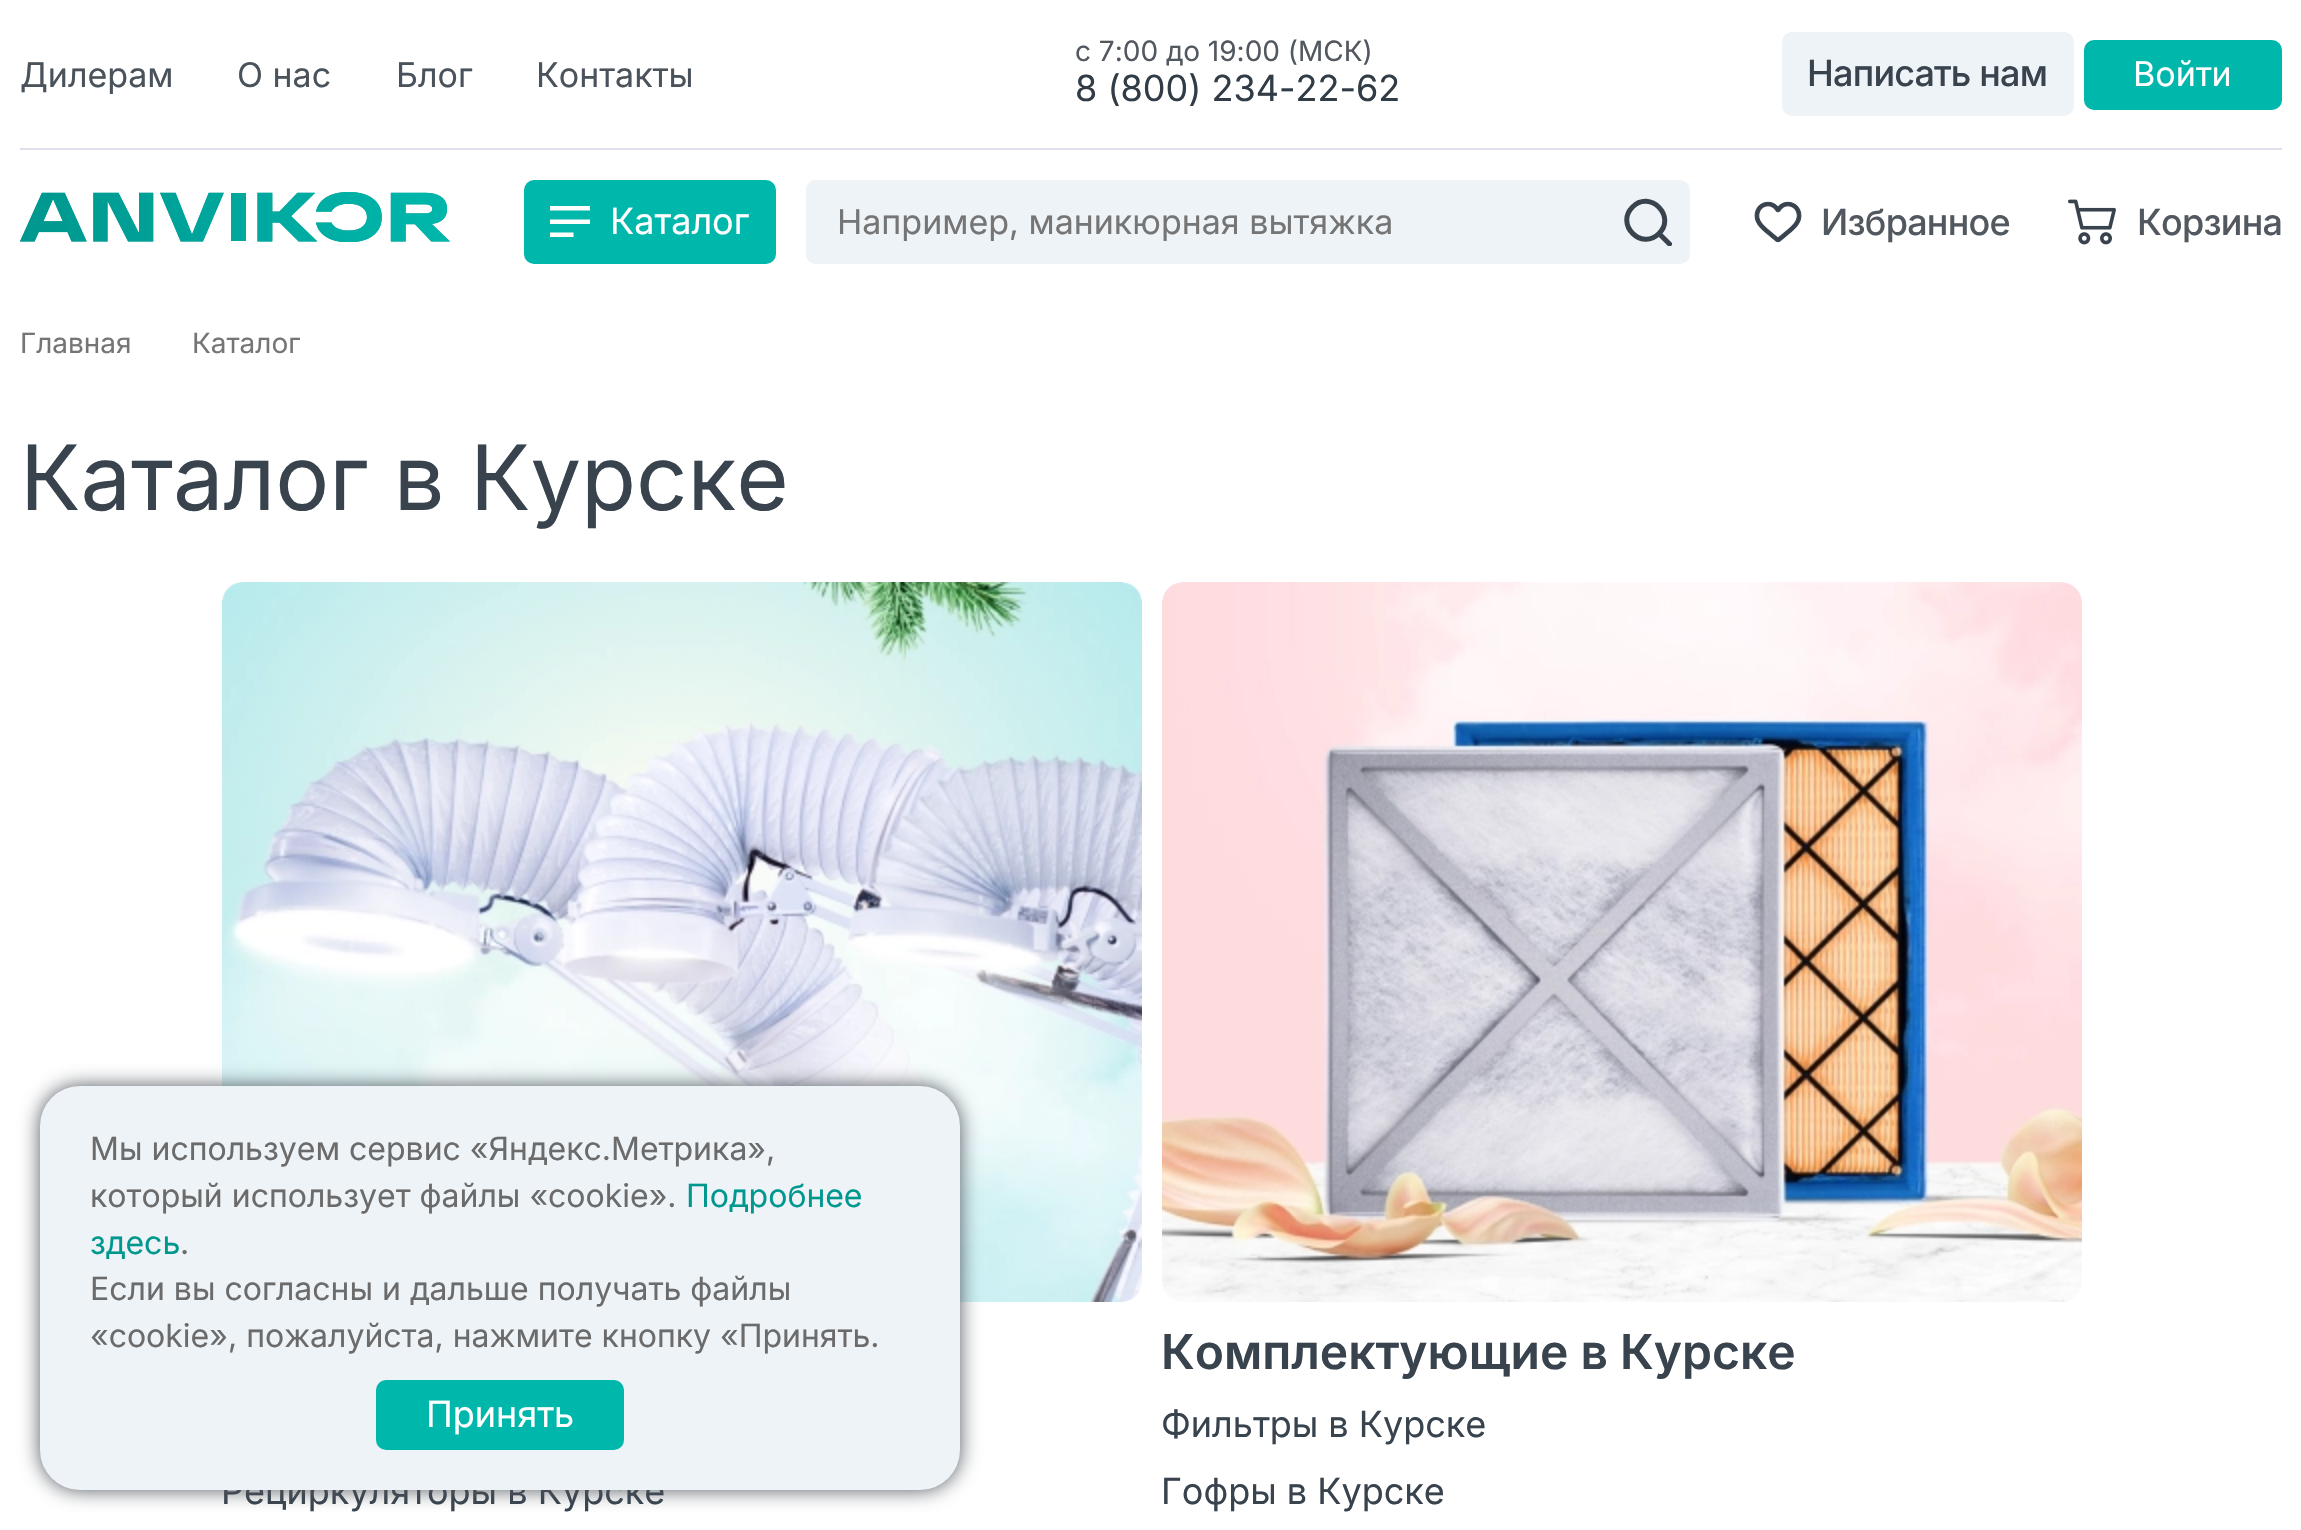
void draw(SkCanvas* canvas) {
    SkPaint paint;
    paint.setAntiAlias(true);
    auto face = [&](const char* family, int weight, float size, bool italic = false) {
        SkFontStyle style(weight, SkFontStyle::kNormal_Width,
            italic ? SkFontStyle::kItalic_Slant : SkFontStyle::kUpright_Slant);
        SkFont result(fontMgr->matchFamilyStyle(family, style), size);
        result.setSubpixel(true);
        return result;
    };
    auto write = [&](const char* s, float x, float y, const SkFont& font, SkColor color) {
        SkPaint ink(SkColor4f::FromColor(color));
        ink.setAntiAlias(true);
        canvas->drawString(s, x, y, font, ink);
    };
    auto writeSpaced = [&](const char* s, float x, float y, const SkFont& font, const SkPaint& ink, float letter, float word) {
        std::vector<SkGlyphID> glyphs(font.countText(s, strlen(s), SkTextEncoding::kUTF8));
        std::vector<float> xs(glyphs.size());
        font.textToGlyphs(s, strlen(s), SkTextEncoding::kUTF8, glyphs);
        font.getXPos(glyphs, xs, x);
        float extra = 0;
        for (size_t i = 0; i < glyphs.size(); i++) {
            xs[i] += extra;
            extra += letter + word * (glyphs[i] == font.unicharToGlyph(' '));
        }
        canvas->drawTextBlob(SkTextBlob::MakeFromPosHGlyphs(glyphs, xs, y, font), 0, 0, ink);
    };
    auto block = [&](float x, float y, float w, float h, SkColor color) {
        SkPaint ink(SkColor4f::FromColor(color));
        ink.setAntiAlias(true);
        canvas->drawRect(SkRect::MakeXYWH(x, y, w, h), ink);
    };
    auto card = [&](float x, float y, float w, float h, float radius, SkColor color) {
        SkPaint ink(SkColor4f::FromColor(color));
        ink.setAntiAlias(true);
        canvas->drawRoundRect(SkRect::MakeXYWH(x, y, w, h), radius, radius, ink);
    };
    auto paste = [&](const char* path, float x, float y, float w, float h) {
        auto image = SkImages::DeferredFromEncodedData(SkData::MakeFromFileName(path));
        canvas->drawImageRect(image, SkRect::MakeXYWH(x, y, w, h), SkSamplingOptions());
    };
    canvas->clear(SK_ColorWHITE);
    block(20, 148, 2262, 2, SkColorSetRGB(222, 225, 235));
    auto kFont1 = face("Inter", 400, 34);
    write("Дилерам", 20, 87, kFont1, SkColorSetRGB(74, 83, 92));
    write("О нас", 237, 87, kFont1, SkColorSetRGB(74, 83, 92));
    write("Блог", 396, 87, kFont1, SkColorSetRGB(74, 83, 92));
    write("Контакты", 536, 87, kFont1, SkColorSetRGB(74, 83, 92));
    auto kFont2 = face("Inter", 400, 28);
    write("с 7:00 до 19:00 (МСК)", 1075, 61, kFont2, SkColorSetRGB(82, 88, 95));
    auto kFont3 = face("Inter", 400, 36);
    write("8 (800) 234-22-62", 1075, 101, kFont3, SkColorSetRGB(49, 60, 70));
    card(1782, 32, 292, 84, 10, SkColorSetRGB(238, 243, 247));
    auto kFont4 = face("Inter", 500, 36);
    paint.setColor(SkColorSetRGB(56, 67, 78));
    writeSpaced("Написать нам", 1807, 86, kFont4, paint, -0.75f, 0);
    card(2084, 40, 198, 70, 10, SkColorSetRGB(0, 183, 172));
    write("Войти", 2133, 86, kFont1, SK_ColorWHITE);
    paste("pic1.png", 20, 192, 430, 50);
    card(524, 180, 252, 84, 10, SkColorSetRGB(0, 183, 172));
    paint.setColor(SK_ColorWHITE);
    canvas->drawPath(SkPathBuilder(SkPathFillType::kEvenOdd).moveTo(590, 210.5f).lineTo(550, 210.5f).lineTo(550, 206).lineTo(590, 206).close().moveTo(590, 224).lineTo(550, 224).lineTo(550, 219.5f).lineTo(590, 219.5f).close().moveTo(573.5f, 237).lineTo(550, 237).lineTo(550, 232.5f).lineTo(573.5f, 232.5f).close().detach(), paint);
    write("Каталог", 610, 234, kFont3, SK_ColorWHITE);
    card(806, 180, 884, 84, 10, SkColorSetRGB(238, 243, 247));
    card(806, 180, 818, 84, 10, SkColorSetRGB(238, 243, 247));
    write("Например, маникюрная вытяжка", 837, 234, kFont1, SkColorSetRGB(117, 117, 117));
    canvas->save();
    canvas->clipRect(SkRect::MakeXYWH(1624, 198, 48, 48));
    paint.setStyle(SkPaint::kStroke_Style);
    paint.setStrokeWidth(5);
    paint.setStrokeCap(SkPaint::kRound_Cap);
    paint.setColor(SkColorSetRGB(56, 67, 78));
    canvas->drawPath(SkPathBuilder().moveTo(1659, 233.5f).cubicTo(1676.5f, 216.5f, 1650, 189.5f, 1632.5f, 207).cubicTo(1615, 224.5f, 1641.5f, 251, 1659, 233.5f).close().moveTo(1659, 233.5f).lineTo(1669.5f, 244).detach(), paint);
    canvas->restore();
    paste("pic2.png", 1754, 201, 48, 42);
    paint.setStyle(SkPaint::kFill_Style);
    paint.setColor(SkColorSetRGB(82, 88, 95));
    writeSpaced("Избранное", 1821, 235, kFont4, paint, -0.75f, 0);
    paste("pic3.png", 2068, 199, 48, 46);
    writeSpaced("Корзина", 2137, 235, kFont4, paint, -0.75f, 0);
    write("Главная", 20, 353, kFont2, SkColorSetRGB(117, 117, 117));
    write("Каталог", 192, 353, kFont2, SkColorSetRGB(117, 117, 117));
    auto kFont5 = face("Inter", 400, 90);
    write("Каталог в Курске", 20, 510, kFont5, SkColorSetRGB(56, 67, 78));
    paste("pic4.png", 222, 582, 920, 720);
    write("Рециркуляторы в Курске", 221, 1504, kFont3, SkColorSetRGB(56, 67, 78));
    paste("pic5.png", 1162, 582, 920, 720);
    auto kFont6 = face("Inter", 600, 48);
    write("Комплектующие в Курске", 1161, 1369, kFont6, SkColorSetRGB(56, 67, 78));
    write("Фильтры в Курске", 1161, 1437, kFont3, SkColorSetRGB(56, 67, 78));
    write("Гофры в Курске", 1161, 1504, kFont3, SkColorSetRGB(56, 67, 78));
    paint.setMaskFilter(SkMaskFilter::MakeBlur(kNormal_SkBlurStyle, 10));
    canvas->drawRoundRect(SkRect::MakeXYWH(40, 1086, 920, 404), 40, 40, paint);
    paint.setMaskFilter(nullptr);
    card(40, 1086, 920, 404, 40, SkColorSetRGB(238, 243, 247));
    auto kFont7 = face("Inter", 400, 32);
    write("Мы используем сервис «Яндекс.Метрика»,", 90, 1160, kFont7, SkColorSetRGB(107, 107, 107));
    write("который использует файлы «cookie».", 90, 1207, kFont7, SkColorSetRGB(107, 107, 107));
    write("Подробнее", 686, 1207, kFont7, SkColorSetRGB(0, 151, 142));
    write("здесь", 90, 1254, kFont7, SkColorSetRGB(0, 151, 142));
    write(".", 180, 1254, kFont7, SkColorSetRGB(107, 107, 107));
    write("Если вы согласны и дальше получать файлы", 90, 1300, kFont7, SkColorSetRGB(107, 107, 107));
    write("«cookie», пожалуйста, нажмите кнопку «Принять.", 90, 1347, kFont7, SkColorSetRGB(107, 107, 107));
    card(376, 1380, 248, 70, 10, SkColorSetRGB(0, 183, 172));
    write("Принять", 426, 1427, kFont3, SK_ColorWHITE);
}
